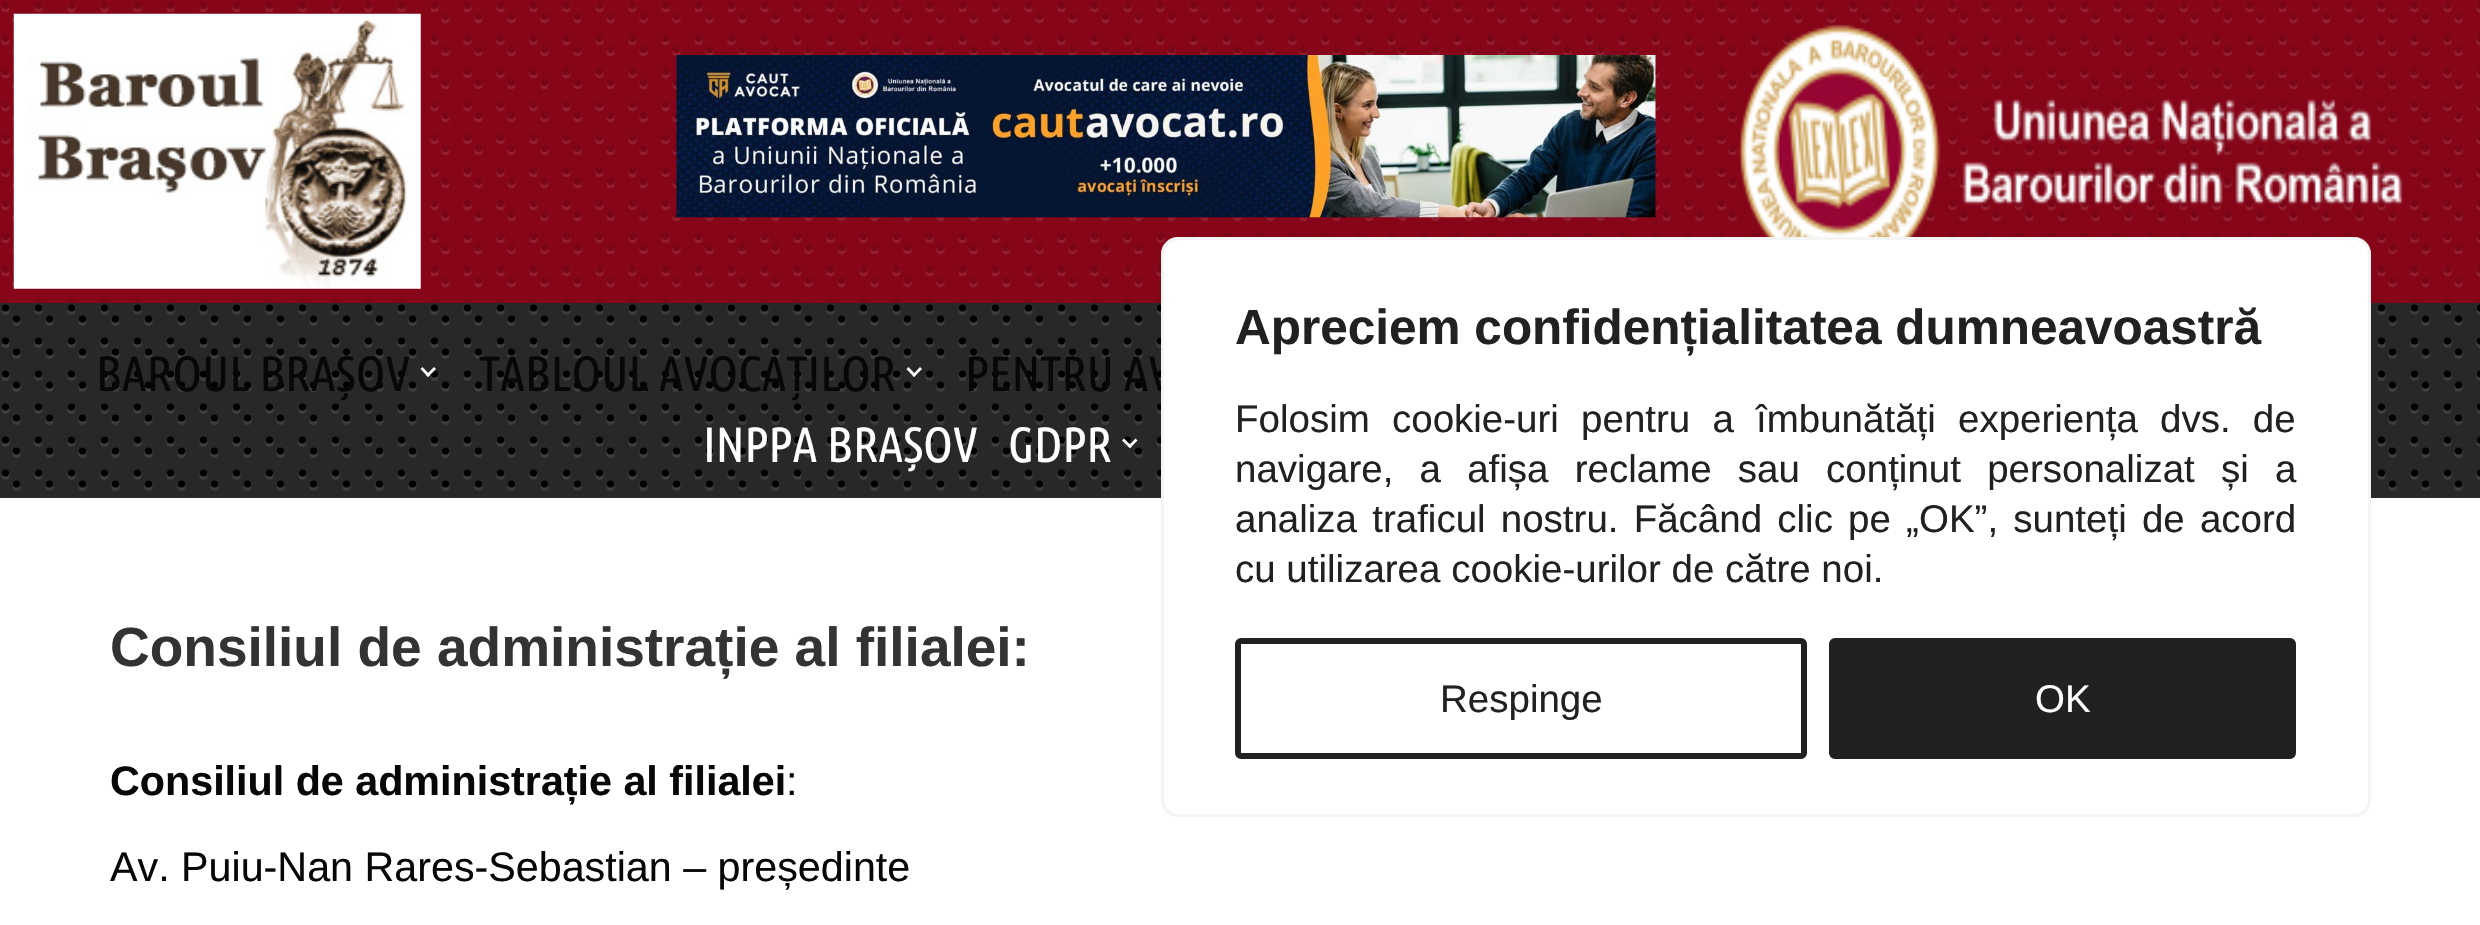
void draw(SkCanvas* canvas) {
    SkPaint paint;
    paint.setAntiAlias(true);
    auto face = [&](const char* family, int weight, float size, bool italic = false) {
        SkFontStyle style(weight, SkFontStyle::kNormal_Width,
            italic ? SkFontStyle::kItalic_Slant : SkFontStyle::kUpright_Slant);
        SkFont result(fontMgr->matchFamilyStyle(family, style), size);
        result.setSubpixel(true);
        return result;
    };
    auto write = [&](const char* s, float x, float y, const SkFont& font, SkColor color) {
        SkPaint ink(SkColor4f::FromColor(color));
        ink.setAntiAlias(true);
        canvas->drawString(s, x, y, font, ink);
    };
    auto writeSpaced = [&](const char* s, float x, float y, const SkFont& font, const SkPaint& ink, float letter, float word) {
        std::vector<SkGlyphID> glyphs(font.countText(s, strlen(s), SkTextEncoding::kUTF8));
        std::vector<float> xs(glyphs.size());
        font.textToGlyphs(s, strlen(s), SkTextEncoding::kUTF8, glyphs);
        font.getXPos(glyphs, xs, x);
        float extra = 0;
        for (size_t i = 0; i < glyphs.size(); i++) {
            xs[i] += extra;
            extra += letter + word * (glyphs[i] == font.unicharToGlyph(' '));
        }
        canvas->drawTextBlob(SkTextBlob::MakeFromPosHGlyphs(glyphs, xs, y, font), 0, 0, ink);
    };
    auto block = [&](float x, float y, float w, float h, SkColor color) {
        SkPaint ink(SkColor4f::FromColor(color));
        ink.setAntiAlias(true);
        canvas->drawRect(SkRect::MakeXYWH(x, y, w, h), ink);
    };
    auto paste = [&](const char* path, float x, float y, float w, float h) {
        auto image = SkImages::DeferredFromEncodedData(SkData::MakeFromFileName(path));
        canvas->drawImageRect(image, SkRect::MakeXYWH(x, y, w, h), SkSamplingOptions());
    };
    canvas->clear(SK_ColorWHITE);
    block(0, 0, 2480, 303, SkColorSetRGB(134, 5, 24));
    paint.setStyle(SkPaint::kStroke_Style);
    paint.setStrokeWidth(8.2f);
    paint.setStrokeCap(SkPaint::kRound_Cap);
    paint.setColor(SkColorSetRGB(146, 30, 47));
    paint.setPathEffect(SkDashPathEffect::Make({{0, 33}}, 0));
    canvas->drawPath(SkPathBuilder().moveTo(5.5f, 8.2f).lineTo(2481.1f, 8.2f).detach(), paint);
    paint.setPathEffect(nullptr);
    paint.setPathEffect(SkDashPathEffect::Make({{0, 33}}, 0));
    canvas->drawPath(SkPathBuilder().moveTo(5.5f, 41.2f).lineTo(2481.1f, 41.2f).detach(), paint);
    paint.setPathEffect(nullptr);
    paint.setPathEffect(SkDashPathEffect::Make({{0, 33}}, 0));
    canvas->drawPath(SkPathBuilder().moveTo(5.5f, 74.2f).lineTo(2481.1f, 74.2f).detach(), paint);
    paint.setPathEffect(nullptr);
    paint.setPathEffect(SkDashPathEffect::Make({{0, 33}}, 0));
    canvas->drawPath(SkPathBuilder().moveTo(5.5f, 107.2f).lineTo(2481.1f, 107.2f).detach(), paint);
    paint.setPathEffect(nullptr);
    paint.setPathEffect(SkDashPathEffect::Make({{0, 33}}, 0));
    canvas->drawPath(SkPathBuilder().moveTo(5.5f, 140.2f).lineTo(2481.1f, 140.2f).detach(), paint);
    paint.setPathEffect(nullptr);
    paint.setPathEffect(SkDashPathEffect::Make({{0, 33}}, 0));
    canvas->drawPath(SkPathBuilder().moveTo(5.5f, 173.2f).lineTo(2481.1f, 173.2f).detach(), paint);
    paint.setPathEffect(nullptr);
    paint.setPathEffect(SkDashPathEffect::Make({{0, 33}}, 0));
    canvas->drawPath(SkPathBuilder().moveTo(5.5f, 206.2f).lineTo(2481.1f, 206.2f).detach(), paint);
    paint.setPathEffect(nullptr);
    paint.setPathEffect(SkDashPathEffect::Make({{0, 33}}, 0));
    canvas->drawPath(SkPathBuilder().moveTo(5.5f, 239.2f).lineTo(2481.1f, 239.2f).detach(), paint);
    paint.setPathEffect(nullptr);
    paint.setPathEffect(SkDashPathEffect::Make({{0, 33}}, 0));
    canvas->drawPath(SkPathBuilder().moveTo(5.5f, 272.2f).lineTo(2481.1f, 272.2f).detach(), paint);
    paint.setPathEffect(nullptr);
    paint.setPathEffect(SkDashPathEffect::Make({{0, 33}}, 0));
    canvas->drawPath(SkPathBuilder().moveTo(16.5f, 19.2f).lineTo(2459.1f, 19.2f).detach(), paint);
    paint.setPathEffect(nullptr);
    paint.setPathEffect(SkDashPathEffect::Make({{0, 33}}, 0));
    canvas->drawPath(SkPathBuilder().moveTo(16.5f, 52.2f).lineTo(2459.1f, 52.2f).detach(), paint);
    paint.setPathEffect(nullptr);
    paint.setPathEffect(SkDashPathEffect::Make({{0, 33}}, 0));
    canvas->drawPath(SkPathBuilder().moveTo(16.5f, 85.2f).lineTo(2459.1f, 85.2f).detach(), paint);
    paint.setPathEffect(nullptr);
    paint.setPathEffect(SkDashPathEffect::Make({{0, 33}}, 0));
    canvas->drawPath(SkPathBuilder().moveTo(16.5f, 118.2f).lineTo(2459.1f, 118.2f).detach(), paint);
    paint.setPathEffect(nullptr);
    paint.setPathEffect(SkDashPathEffect::Make({{0, 33}}, 0));
    canvas->drawPath(SkPathBuilder().moveTo(16.5f, 151.2f).lineTo(2459.1f, 151.2f).detach(), paint);
    paint.setPathEffect(nullptr);
    paint.setPathEffect(SkDashPathEffect::Make({{0, 33}}, 0));
    canvas->drawPath(SkPathBuilder().moveTo(16.5f, 184.2f).lineTo(2459.1f, 184.2f).detach(), paint);
    paint.setPathEffect(nullptr);
    paint.setPathEffect(SkDashPathEffect::Make({{0, 33}}, 0));
    canvas->drawPath(SkPathBuilder().moveTo(16.5f, 217.2f).lineTo(2459.1f, 217.2f).detach(), paint);
    paint.setPathEffect(nullptr);
    paint.setPathEffect(SkDashPathEffect::Make({{0, 33}}, 0));
    canvas->drawPath(SkPathBuilder().moveTo(16.5f, 250.2f).lineTo(2459.1f, 250.2f).detach(), paint);
    paint.setPathEffect(nullptr);
    paint.setPathEffect(SkDashPathEffect::Make({{0, 33}}, 0));
    canvas->drawPath(SkPathBuilder().moveTo(16.5f, 283.2f).lineTo(2459.1f, 283.2f).detach(), paint);
    paint.setPathEffect(nullptr);
    paint.setStrokeWidth(7.2f);
    paint.setColor(SkColorSetRGB(122, 5, 22));
    paint.setPathEffect(SkDashPathEffect::Make({{0, 33}}, 0));
    canvas->drawPath(SkPathBuilder().moveTo(5.5f, 5.5f).lineTo(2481.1f, 5.5f).detach(), paint);
    paint.setPathEffect(nullptr);
    paint.setPathEffect(SkDashPathEffect::Make({{0, 33}}, 0));
    canvas->drawPath(SkPathBuilder().moveTo(5.5f, 38.5f).lineTo(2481.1f, 38.5f).detach(), paint);
    paint.setPathEffect(nullptr);
    paint.setPathEffect(SkDashPathEffect::Make({{0, 33}}, 0));
    canvas->drawPath(SkPathBuilder().moveTo(5.5f, 71.5f).lineTo(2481.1f, 71.5f).detach(), paint);
    paint.setPathEffect(nullptr);
    paint.setPathEffect(SkDashPathEffect::Make({{0, 33}}, 0));
    canvas->drawPath(SkPathBuilder().moveTo(5.5f, 104.5f).lineTo(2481.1f, 104.5f).detach(), paint);
    paint.setPathEffect(nullptr);
    paint.setPathEffect(SkDashPathEffect::Make({{0, 33}}, 0));
    canvas->drawPath(SkPathBuilder().moveTo(5.5f, 137.5f).lineTo(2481.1f, 137.5f).detach(), paint);
    paint.setPathEffect(nullptr);
    paint.setPathEffect(SkDashPathEffect::Make({{0, 33}}, 0));
    canvas->drawPath(SkPathBuilder().moveTo(5.5f, 170.5f).lineTo(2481.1f, 170.5f).detach(), paint);
    paint.setPathEffect(nullptr);
    paint.setPathEffect(SkDashPathEffect::Make({{0, 33}}, 0));
    canvas->drawPath(SkPathBuilder().moveTo(5.5f, 203.5f).lineTo(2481.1f, 203.5f).detach(), paint);
    paint.setPathEffect(nullptr);
    paint.setPathEffect(SkDashPathEffect::Make({{0, 33}}, 0));
    canvas->drawPath(SkPathBuilder().moveTo(5.5f, 236.5f).lineTo(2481.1f, 236.5f).detach(), paint);
    paint.setPathEffect(nullptr);
    paint.setPathEffect(SkDashPathEffect::Make({{0, 33}}, 0));
    canvas->drawPath(SkPathBuilder().moveTo(5.5f, 269.5f).lineTo(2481.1f, 269.5f).detach(), paint);
    paint.setPathEffect(nullptr);
    paint.setPathEffect(SkDashPathEffect::Make({{0, 33}}, 0));
    canvas->drawPath(SkPathBuilder().moveTo(5.5f, 302.5f).lineTo(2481.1f, 302.5f).detach(), paint);
    paint.setPathEffect(nullptr);
    paint.setPathEffect(SkDashPathEffect::Make({{0, 33}}, 0));
    canvas->drawPath(SkPathBuilder().moveTo(16.5f, 16.5f).lineTo(2459.1f, 16.5f).detach(), paint);
    paint.setPathEffect(nullptr);
    paint.setPathEffect(SkDashPathEffect::Make({{0, 33}}, 0));
    canvas->drawPath(SkPathBuilder().moveTo(16.5f, 49.5f).lineTo(2459.1f, 49.5f).detach(), paint);
    paint.setPathEffect(nullptr);
    paint.setPathEffect(SkDashPathEffect::Make({{0, 33}}, 0));
    canvas->drawPath(SkPathBuilder().moveTo(16.5f, 82.5f).lineTo(2459.1f, 82.5f).detach(), paint);
    paint.setPathEffect(nullptr);
    paint.setPathEffect(SkDashPathEffect::Make({{0, 33}}, 0));
    canvas->drawPath(SkPathBuilder().moveTo(16.5f, 115.5f).lineTo(2459.1f, 115.5f).detach(), paint);
    paint.setPathEffect(nullptr);
    paint.setPathEffect(SkDashPathEffect::Make({{0, 33}}, 0));
    canvas->drawPath(SkPathBuilder().moveTo(16.5f, 148.5f).lineTo(2459.1f, 148.5f).detach(), paint);
    paint.setPathEffect(nullptr);
    paint.setPathEffect(SkDashPathEffect::Make({{0, 33}}, 0));
    canvas->drawPath(SkPathBuilder().moveTo(16.5f, 181.5f).lineTo(2459.1f, 181.5f).detach(), paint);
    paint.setPathEffect(nullptr);
    paint.setPathEffect(SkDashPathEffect::Make({{0, 33}}, 0));
    canvas->drawPath(SkPathBuilder().moveTo(16.5f, 214.5f).lineTo(2459.1f, 214.5f).detach(), paint);
    paint.setPathEffect(nullptr);
    paint.setPathEffect(SkDashPathEffect::Make({{0, 33}}, 0));
    canvas->drawPath(SkPathBuilder().moveTo(16.5f, 247.5f).lineTo(2459.1f, 247.5f).detach(), paint);
    paint.setPathEffect(nullptr);
    paint.setPathEffect(SkDashPathEffect::Make({{0, 33}}, 0));
    canvas->drawPath(SkPathBuilder().moveTo(16.5f, 280.5f).lineTo(2459.1f, 280.5f).detach(), paint);
    paint.setPathEffect(nullptr);
    paste("pic1.png", 13, 13, 408, 276);
    paste("pic2.png", 676, 55, 980, 163);
    paste("pic3.png", 1738, 24, 665, 213);
    block(0, 303, 2480, 195, SkColorSetRGB(40, 40, 40));
    paint.setStrokeWidth(8.2f);
    paint.setColor(SkColorSetRGB(62, 62, 62));
    paint.setPathEffect(SkDashPathEffect::Make({{0, 33}}, 0));
    canvas->drawPath(SkPathBuilder().moveTo(5.5f, 310.8f).lineTo(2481.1f, 310.8f).detach(), paint);
    paint.setPathEffect(nullptr);
    paint.setPathEffect(SkDashPathEffect::Make({{0, 33}}, 0));
    canvas->drawPath(SkPathBuilder().moveTo(5.5f, 343.8f).lineTo(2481.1f, 343.8f).detach(), paint);
    paint.setPathEffect(nullptr);
    paint.setPathEffect(SkDashPathEffect::Make({{0, 33}}, 0));
    canvas->drawPath(SkPathBuilder().moveTo(5.5f, 376.8f).lineTo(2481.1f, 376.8f).detach(), paint);
    paint.setPathEffect(nullptr);
    paint.setPathEffect(SkDashPathEffect::Make({{0, 33}}, 0));
    canvas->drawPath(SkPathBuilder().moveTo(5.5f, 409.8f).lineTo(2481.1f, 409.8f).detach(), paint);
    paint.setPathEffect(nullptr);
    paint.setPathEffect(SkDashPathEffect::Make({{0, 33}}, 0));
    canvas->drawPath(SkPathBuilder().moveTo(5.5f, 442.8f).lineTo(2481.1f, 442.8f).detach(), paint);
    paint.setPathEffect(nullptr);
    paint.setPathEffect(SkDashPathEffect::Make({{0, 33}}, 0));
    canvas->drawPath(SkPathBuilder().moveTo(5.5f, 475.8f).lineTo(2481.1f, 475.8f).detach(), paint);
    paint.setPathEffect(nullptr);
    paint.setPathEffect(SkDashPathEffect::Make({{0, 33}}, 0));
    canvas->drawPath(SkPathBuilder().moveTo(16.5f, 321.8f).lineTo(2459.1f, 321.8f).detach(), paint);
    paint.setPathEffect(nullptr);
    paint.setPathEffect(SkDashPathEffect::Make({{0, 33}}, 0));
    canvas->drawPath(SkPathBuilder().moveTo(16.5f, 354.8f).lineTo(2459.1f, 354.8f).detach(), paint);
    paint.setPathEffect(nullptr);
    paint.setPathEffect(SkDashPathEffect::Make({{0, 33}}, 0));
    canvas->drawPath(SkPathBuilder().moveTo(16.5f, 387.8f).lineTo(2459.1f, 387.8f).detach(), paint);
    paint.setPathEffect(nullptr);
    paint.setPathEffect(SkDashPathEffect::Make({{0, 33}}, 0));
    canvas->drawPath(SkPathBuilder().moveTo(16.5f, 420.8f).lineTo(2459.1f, 420.8f).detach(), paint);
    paint.setPathEffect(nullptr);
    paint.setPathEffect(SkDashPathEffect::Make({{0, 33}}, 0));
    canvas->drawPath(SkPathBuilder().moveTo(16.5f, 453.8f).lineTo(2459.1f, 453.8f).detach(), paint);
    paint.setPathEffect(nullptr);
    paint.setPathEffect(SkDashPathEffect::Make({{0, 33}}, 0));
    canvas->drawPath(SkPathBuilder().moveTo(16.5f, 486.8f).lineTo(2459.1f, 486.8f).detach(), paint);
    paint.setPathEffect(nullptr);
    paint.setStrokeWidth(7.2f);
    paint.setColor(SK_ColorBLACK);
    paint.setPathEffect(SkDashPathEffect::Make({{0, 33}}, 0));
    canvas->drawPath(SkPathBuilder().moveTo(5.5f, 308).lineTo(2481.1f, 308).detach(), paint);
    paint.setPathEffect(nullptr);
    paint.setPathEffect(SkDashPathEffect::Make({{0, 33}}, 0));
    canvas->drawPath(SkPathBuilder().moveTo(5.5f, 341).lineTo(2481.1f, 341).detach(), paint);
    paint.setPathEffect(nullptr);
    paint.setPathEffect(SkDashPathEffect::Make({{0, 33}}, 0));
    canvas->drawPath(SkPathBuilder().moveTo(5.5f, 374).lineTo(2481.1f, 374).detach(), paint);
    paint.setPathEffect(nullptr);
    paint.setPathEffect(SkDashPathEffect::Make({{0, 33}}, 0));
    canvas->drawPath(SkPathBuilder().moveTo(5.5f, 407).lineTo(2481.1f, 407).detach(), paint);
    paint.setPathEffect(nullptr);
    paint.setPathEffect(SkDashPathEffect::Make({{0, 33}}, 0));
    canvas->drawPath(SkPathBuilder().moveTo(5.5f, 440).lineTo(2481.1f, 440).detach(), paint);
    paint.setPathEffect(nullptr);
    paint.setPathEffect(SkDashPathEffect::Make({{0, 33}}, 0));
    canvas->drawPath(SkPathBuilder().moveTo(5.5f, 473).lineTo(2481.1f, 473).detach(), paint);
    paint.setPathEffect(nullptr);
    paint.setPathEffect(SkDashPathEffect::Make({{0, 33}}, 0));
    canvas->drawPath(SkPathBuilder().moveTo(16.5f, 319).lineTo(2459.1f, 319).detach(), paint);
    paint.setPathEffect(nullptr);
    paint.setPathEffect(SkDashPathEffect::Make({{0, 33}}, 0));
    canvas->drawPath(SkPathBuilder().moveTo(16.5f, 352).lineTo(2459.1f, 352).detach(), paint);
    paint.setPathEffect(nullptr);
    paint.setPathEffect(SkDashPathEffect::Make({{0, 33}}, 0));
    canvas->drawPath(SkPathBuilder().moveTo(16.5f, 385).lineTo(2459.1f, 385).detach(), paint);
    paint.setPathEffect(nullptr);
    paint.setPathEffect(SkDashPathEffect::Make({{0, 33}}, 0));
    canvas->drawPath(SkPathBuilder().moveTo(16.5f, 418).lineTo(2459.1f, 418).detach(), paint);
    paint.setPathEffect(nullptr);
    paint.setPathEffect(SkDashPathEffect::Make({{0, 33}}, 0));
    canvas->drawPath(SkPathBuilder().moveTo(16.5f, 451).lineTo(2459.1f, 451).detach(), paint);
    paint.setPathEffect(nullptr);
    paint.setPathEffect(SkDashPathEffect::Make({{0, 33}}, 0));
    canvas->drawPath(SkPathBuilder().moveTo(16.5f, 484).lineTo(2459.1f, 484).detach(), paint);
    paint.setPathEffect(nullptr);
    auto kFont1 = face("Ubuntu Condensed", 400, 49.5f);
    write("BAROUL BRAȘOV", 96, 391, kFont1, SkColorSetRGB(5, 7, 8));
    paint.setStyle(SkPaint::kFill_Style);
    paint.setColor(SK_ColorWHITE);
    canvas->drawPath(SkPathBuilder().moveTo(434, 367).lineTo(436, 369).lineTo(428, 377).lineTo(426, 375).close().detach(), paint);
    canvas->drawPath(SkPathBuilder().moveTo(422.5f, 367).lineTo(430, 375).lineTo(428, 377).lineTo(420.5f, 369).close().detach(), paint);
    write("TABLOUL AVOCAȚILOR", 479, 391, kFont1, SkColorSetRGB(5, 7, 8));
    canvas->drawPath(SkPathBuilder().moveTo(920, 367).lineTo(922, 369).lineTo(914, 377).lineTo(912.5f, 375).close().detach(), paint);
    canvas->drawPath(SkPathBuilder().moveTo(908.5f, 367).lineTo(916, 375).lineTo(914, 377).lineTo(906.5f, 369).close().detach(), paint);
    write("PENTRU AV", 965, 391, kFont1, SkColorSetRGB(5, 7, 8));
    write("INPPA BRAȘOV", 703, 462, kFont1, SK_ColorWHITE);
    write("GDPR", 1008, 462, kFont1, SK_ColorWHITE);
    canvas->drawPath(SkPathBuilder().moveTo(1135.5f, 438.5f).lineTo(1137.5f, 440.5f).lineTo(1130, 448).lineTo(1128, 446.5f).close().detach(), paint);
    canvas->drawPath(SkPathBuilder().moveTo(1124, 438.5f).lineTo(1132, 446.5f).lineTo(1130, 448).lineTo(1122, 440.5f).close().detach(), paint);
    auto kFont2 = face("Liberation Sans", 700, 55);
    write("Consiliul de administrație al filialei:", 110, 666, kFont2, SkColorSetRGB(51, 51, 51));
    auto kFont3 = face("Liberation Sans", 700, 41.25f);
    write("Consiliul de administrație al filialei", 110, 795, kFont3, SkColorSetRGB(5, 7, 8));
    auto kFont4 = face("Liberation Sans", 400, 41.25f);
    write(":", 786, 795, kFont4, SkColorSetRGB(5, 7, 8));
    write("Av. Puiu-Nan Rares-Sebastian – președinte", 110, 881, kFont4, SkColorSetRGB(5, 7, 8));
    canvas->save();
    canvas->clipPath(SkPathBuilder().moveTo(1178, 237).lineTo(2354, 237).cubicTo(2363.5f, 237, 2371, 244.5f, 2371, 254).lineTo(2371, 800).cubicTo(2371, 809.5f, 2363.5f, 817, 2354, 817).lineTo(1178, 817).cubicTo(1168.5f, 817, 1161, 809.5f, 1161, 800).lineTo(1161, 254).cubicTo(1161, 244.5f, 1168.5f, 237, 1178, 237).close().detach(), true);
    paint.setColor(SkColorSetARGB(77, 172, 171, 171));
    paint.setMaskFilter(SkMaskFilter::MakeBlur(kNormal_SkBlurStyle, 14));
    canvas->drawRoundRect(SkRect::MakeXYWH(1161, 234, 1210, 580), 17, 17, paint);
    paint.setMaskFilter(nullptr);
    canvas->restore();
    paint.setColor(SK_ColorWHITE);
    canvas->drawRoundRect(SkRect::MakeXYWH(1162.5f, 238.5f, 1207, 577), 15.5f, 15.5f, paint);
    paint.setStyle(SkPaint::kStroke_Style);
    paint.setStrokeWidth(3);
    paint.setStrokeCap(SkPaint::kButt_Cap);
    paint.setColor(SkColorSetRGB(244, 244, 244));
    canvas->drawRoundRect(SkRect::MakeXYWH(1162.5f, 238.5f, 1207, 577), 15.5f, 15.5f, paint);
    auto kFont5 = face("Liberation Sans", 700, 49.5f);
    write("Apreciem confidențialitatea dumneavoastră", 1235, 344, kFont5, SkColorSetRGB(33, 33, 33));
    auto kFont6 = face("Liberation Sans", 400, 38.5f);
    paint.setStyle(SkPaint::kFill_Style);
    paint.setColor(SkColorSetRGB(33, 33, 33));
    writeSpaced("Folosim cookie-uri pentru a îmbunătăți experiența dvs. de", 1235, 432, kFont6, paint, 0, 11.5f);
    writeSpaced("navigare, a afișa reclame sau conținut personalizat și a", 1235, 482, kFont6, paint, 0, 15.5f);
    writeSpaced("analiza traficul nostru. Făcând clic pe „OK”, sunteți de acord", 1235, 532, kFont6, paint, 0, 4.5f);
    write("cu utilizarea cookie-urilor de către noi.", 1235, 582, kFont6, SkColorSetRGB(33, 33, 33));
    paint.setStyle(SkPaint::kStroke_Style);
    paint.setStrokeWidth(6);
    canvas->drawRoundRect(SkRect::MakeXYWH(1238, 641, 566, 115), 3, 3, paint);
    write("Respinge", 1440, 712, kFont6, SkColorSetRGB(33, 33, 33));
    paint.setStyle(SkPaint::kFill_Style);
    canvas->drawRoundRect(SkRect::MakeXYWH(1832, 641, 461, 115), 3, 3, paint);
    paint.setStyle(SkPaint::kStroke_Style);
    canvas->drawRoundRect(SkRect::MakeXYWH(1832, 641, 461, 115), 3, 3, paint);
    write("OK", 2035, 712, kFont6, SK_ColorWHITE);
}
